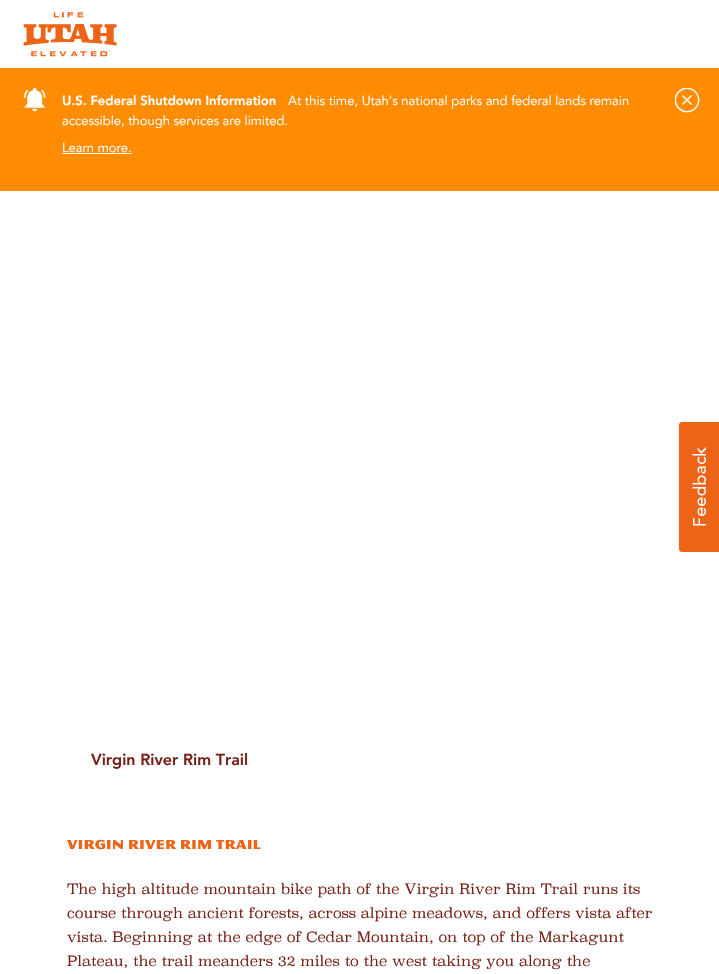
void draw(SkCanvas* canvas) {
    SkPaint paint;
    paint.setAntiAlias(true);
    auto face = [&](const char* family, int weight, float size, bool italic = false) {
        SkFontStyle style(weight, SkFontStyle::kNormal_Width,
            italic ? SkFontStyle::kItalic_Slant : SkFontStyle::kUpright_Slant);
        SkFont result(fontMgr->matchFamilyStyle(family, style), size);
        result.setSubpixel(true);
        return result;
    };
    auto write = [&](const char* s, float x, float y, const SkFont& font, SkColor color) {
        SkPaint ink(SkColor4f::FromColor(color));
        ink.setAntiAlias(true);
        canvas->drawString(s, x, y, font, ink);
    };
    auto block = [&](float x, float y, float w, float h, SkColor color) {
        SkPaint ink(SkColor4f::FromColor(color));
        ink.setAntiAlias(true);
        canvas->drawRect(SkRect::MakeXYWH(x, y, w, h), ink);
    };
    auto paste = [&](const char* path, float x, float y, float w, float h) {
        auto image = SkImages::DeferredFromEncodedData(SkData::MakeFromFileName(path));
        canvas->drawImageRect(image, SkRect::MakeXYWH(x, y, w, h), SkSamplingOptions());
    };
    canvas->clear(SK_ColorWHITE);
    paste("pic1.png", 23, 12, 94, 45);
    block(0, 68, 719, 123, SkColorSetRGB(255, 140, 2));
    paste("pic2.png", 24, 88, 22, 24);
    auto kFont1 = face("Avenir", 900, 13);
    write("U.S. Federal Shutdown Information", 62, 105, kFont1, SK_ColorWHITE);
    auto kFont2 = face("Avenir", 400, 13);
    write("At this time, Utah’s national parks and federal lands remain", 288, 105, kFont2, SK_ColorWHITE);
    write("accessible, though services are limited.", 62, 125, kFont2, SK_ColorWHITE);
    write("Learn more.", 62, 152, kFont2, SK_ColorWHITE);
    block(62, 153, 70, 1, SK_ColorWHITE);
    paste("pic3.png", 675, 88, 25, 25);
    auto kFont3 = face("Avenir", 900, 16);
    write("Virgin River Rim Trail", 91, 765, kFont3, SkColorSetRGB(119, 33, 22));
    auto kFont4 = face("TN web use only", 500, 14);
    write("Virgin River Rim Trail", 67, 849, kFont4, SkColorSetRGB(238, 100, 23));
    auto kFont5 = face("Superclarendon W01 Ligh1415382", 300, 14);
    write("The high altitude mountain bike path of the Virgin River Rim Trail runs its", 67, 894, kFont5, SkColorSetRGB(119, 33, 22));
    write("course through ancient forests, across alpine meadows, and offers vista after", 67, 918, kFont5, SkColorSetRGB(119, 33, 22));
    write("vista. Beginning at the edge of Cedar Mountain, on top of the Markagunt", 67, 942, kFont5, SkColorSetRGB(119, 33, 22));
    write("Plateau, the trail meanders 32 miles to the west taking you along the", 67, 966, kFont5, SkColorSetRGB(119, 33, 22));
    paste("pic4.png", 679, 422, 40, 130);
}
